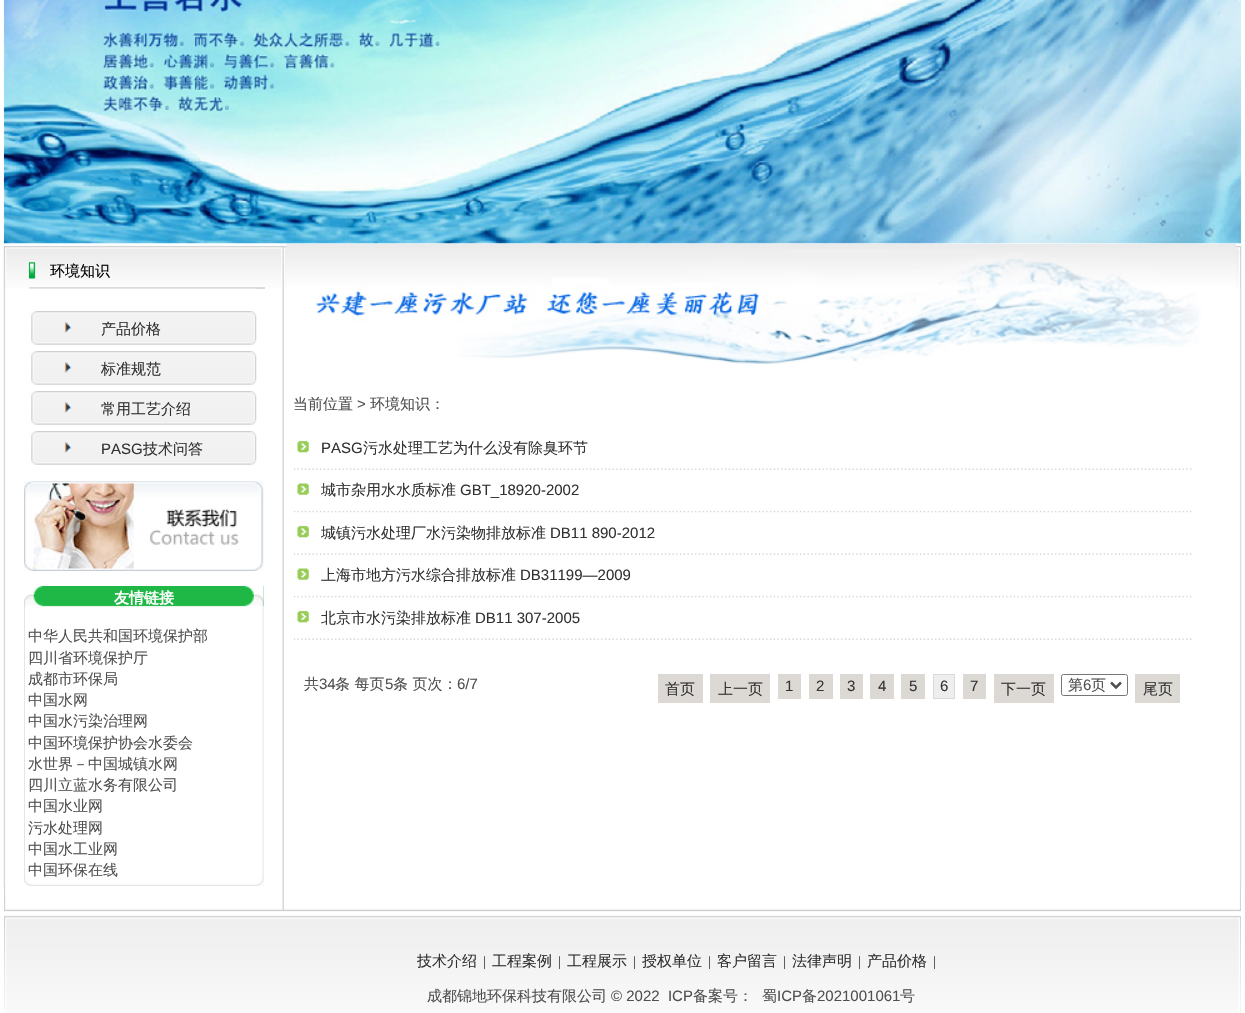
void draw(SkCanvas* canvas) {
    SkPaint paint;
    paint.setAntiAlias(true);
    auto face = [&](const char* family, int weight, float size, bool italic = false) {
        SkFontStyle style(weight, SkFontStyle::kNormal_Width,
            italic ? SkFontStyle::kItalic_Slant : SkFontStyle::kUpright_Slant);
        SkFont result(fontMgr->matchFamilyStyle(family, style), size);
        result.setSubpixel(true);
        return result;
    };
    auto write = [&](const char* s, float x, float y, const SkFont& font, SkColor color) {
        SkPaint ink(SkColor4f::FromColor(color));
        ink.setAntiAlias(true);
        canvas->drawString(s, x, y, font, ink);
    };
    auto block = [&](float x, float y, float w, float h, SkColor color) {
        SkPaint ink(SkColor4f::FromColor(color));
        ink.setAntiAlias(true);
        canvas->drawRect(SkRect::MakeXYWH(x, y, w, h), ink);
    };
    auto paste = [&](const char* path, float x, float y, float w, float h) {
        auto image = SkImages::DeferredFromEncodedData(SkData::MakeFromFileName(path));
        canvas->drawImageRect(image, SkRect::MakeXYWH(x, y, w, h), SkSamplingOptions());
    };
    canvas->clear(SK_ColorWHITE);
    paste("pic2.png", 3, 243, 1239, 643);
    paste("pic3.png", 4, 243, 1237, 45);
    paste("pic8.png", 286, 243, 950, 121);
    paste("pic1.png", 3, 0, 1239, 244);
    paste("pic4.png", 28, 262, 237, 27);
    auto kFont1 = face("WenQuanYi Zen Hei", 500, 15);
    write("环境知识", 50, 276, kFont1, SK_ColorBLACK);
    paste("pic5.png", 256, 288, 9, 1);
    paste("pic6.png", 31, 311, 226, 34);
    write("产品价格", 101, 334, kFont1, SkColorSetRGB(51, 51, 51));
    paste("pic7.png", 31, 351, 226, 34);
    write("标准规范", 101, 374, kFont1, SkColorSetRGB(51, 51, 51));
    paste("pic6.png", 31, 391, 226, 34);
    write("常用工艺介绍", 101, 414, kFont1, SkColorSetRGB(51, 51, 51));
    paste("pic6.png", 31, 431, 226, 34);
    auto kFont2 = face("Liberation Sans", 400, 15);
    write("PASG", 101, 454, kFont2, SkColorSetRGB(51, 51, 51));
    write("技术问答", 143, 454, kFont1, SkColorSetRGB(51, 51, 51));
    write("当前位置", 293, 409, kFont1, SkColorSetRGB(80, 80, 80));
    write(">", 357, 409, kFont2, SkColorSetRGB(80, 80, 80));
    write("环境知识：", 370, 409, kFont1, SkColorSetRGB(80, 80, 80));
    paste("pic9.png", 24, 481, 240, 90);
    paste("pic10.png", 294, 440, 898, 30);
    write("PASG", 321, 453, kFont2, SkColorSetRGB(51, 51, 51));
    write("污水处理工艺为什么没有除臭环节", 363, 453, kFont1, SkColorSetRGB(51, 51, 51));
    paste("pic11.png", 294, 483, 898, 30);
    write("城市杂用水水质标准", 321, 495, kFont1, SkColorSetRGB(51, 51, 51));
    write("GBT_18920-2002", 460, 495, kFont2, SkColorSetRGB(51, 51, 51));
    paste("pic10.png", 294, 525, 898, 30);
    write("城镇污水处理厂水污染物排放标准", 321, 538, kFont1, SkColorSetRGB(51, 51, 51));
    write("DB11 890-2012", 550, 538, kFont2, SkColorSetRGB(51, 51, 51));
    paste("pic11.png", 294, 568, 898, 30);
    write("上海市地方污水综合排放标准", 321, 580, kFont1, SkColorSetRGB(51, 51, 51));
    write("DB31199—2009", 520, 580, kFont2, SkColorSetRGB(51, 51, 51));
    paste("pic10.png", 294, 610, 898, 30);
    write("北京市水污染排放标准", 321, 623, kFont1, SkColorSetRGB(51, 51, 51));
    write("DB11 307-2005", 475, 623, kFont2, SkColorSetRGB(51, 51, 51));
    write("共", 304, 689, kFont1, SkColorSetRGB(80, 80, 80));
    write("34", 319, 689, kFont2, SkColorSetRGB(80, 80, 80));
    write("条 每页", 335, 689, kFont1, SkColorSetRGB(80, 80, 80));
    write("5", 385, 689, kFont2, SkColorSetRGB(80, 80, 80));
    write("条 页次：", 393, 689, kFont1, SkColorSetRGB(80, 80, 80));
    write("6/7", 457, 689, kFont2, SkColorSetRGB(80, 80, 80));
    block(658, 674, 45, 29, SkColorSetRGB(220, 217, 212));
    write("首页", 665, 694, kFont1, SkColorSetRGB(51, 51, 51));
    block(710, 674, 60, 29, SkColorSetRGB(220, 217, 212));
    write("上一页", 718, 694, kFont1, SkColorSetRGB(51, 51, 51));
    block(778, 674, 23, 25, SkColorSetRGB(220, 217, 212));
    write("1", 785, 691, kFont2, SkColorSetRGB(51, 51, 51));
    block(809, 674, 24, 25, SkColorSetRGB(220, 217, 212));
    write("2", 816, 691, kFont2, SkColorSetRGB(51, 51, 51));
    block(840, 674, 23, 25, SkColorSetRGB(220, 217, 212));
    write("3", 847, 691, kFont2, SkColorSetRGB(51, 51, 51));
    block(870, 674, 24, 25, SkColorSetRGB(220, 217, 212));
    write("4", 878, 691, kFont2, SkColorSetRGB(51, 51, 51));
    block(901, 674, 24, 25, SkColorSetRGB(220, 217, 212));
    write("5", 909, 691, kFont2, SkColorSetRGB(51, 51, 51));
    paint.setColor(SkColorSetRGB(238, 238, 238));
    canvas->drawRect(SkRect::MakeXYWH(933.5f, 674.5f, 21, 24), paint);
    paint.setStyle(SkPaint::kStroke_Style);
    paint.setStrokeWidth(1);
    paint.setColor(SkColorSetRGB(220, 217, 212));
    canvas->drawRect(SkRect::MakeXYWH(933.5f, 674.5f, 21, 24), paint);
    write("6", 940, 691, kFont2, SkColorSetRGB(51, 51, 51));
    block(963, 674, 23, 25, SkColorSetRGB(220, 217, 212));
    write("7", 970, 691, kFont2, SkColorSetRGB(51, 51, 51));
    block(994, 674, 60, 29, SkColorSetRGB(220, 217, 212));
    write("下一页", 1001, 694, kFont1, SkColorSetRGB(51, 51, 51));
    paint.setColor(SkColorSetRGB(118, 118, 118));
    canvas->drawRoundRect(SkRect::MakeXYWH(1061.5f, 674.5f, 66, 21), 2, 2, paint);
    paint.setStrokeWidth(2.5f);
    paint.setColor(SkColorSetRGB(80, 80, 80));
    canvas->drawPath(SkPathBuilder().moveTo(1111, 682.5f).lineTo(1116, 687.5f).lineTo(1121, 682.5f).detach(), paint);
    write("第", 1068, 690, kFont1, SkColorSetRGB(80, 80, 80));
    write("6", 1083, 690, kFont2, SkColorSetRGB(80, 80, 80));
    write("页", 1091, 690, kFont1, SkColorSetRGB(80, 80, 80));
    block(1135, 674, 45, 29, SkColorSetRGB(220, 217, 212));
    write("尾页", 1143, 694, kFont1, SkColorSetRGB(51, 51, 51));
    block(24, 608, 1, 278, SkColorSetRGB(229, 229, 229));
    paste("pic12.png", 262, 586, 2, 300);
    paste("pic13.png", 24, 586, 240, 23);
    auto kFont3 = face("WenQuanYi Zen Hei", 700, 15);
    write("友情链接", 114, 603, kFont3, SK_ColorWHITE);
    paste("pic14.png", 245, 586, 19, 22);
    write("中华人民共和国环境保护部", 28, 641, kFont1, SkColorSetRGB(80, 80, 80));
    write("四川省环境保护厅", 28, 663, kFont1, SkColorSetRGB(80, 80, 80));
    write("成都市环保局", 28, 684, kFont1, SkColorSetRGB(80, 80, 80));
    write("中国水网", 28, 705, kFont1, SkColorSetRGB(80, 80, 80));
    write("中国水污染治理网", 28, 726, kFont1, SkColorSetRGB(80, 80, 80));
    write("中国环境保护协会水委会", 28, 748, kFont1, SkColorSetRGB(80, 80, 80));
    write("水世界－中国城镇水网", 28, 769, kFont1, SkColorSetRGB(80, 80, 80));
    write("四川立蓝水务有限公司", 28, 790, kFont1, SkColorSetRGB(80, 80, 80));
    write("中国水业网", 28, 811, kFont1, SkColorSetRGB(80, 80, 80));
    write("污水处理网", 28, 833, kFont1, SkColorSetRGB(80, 80, 80));
    write("中国水工业网", 28, 854, kFont1, SkColorSetRGB(80, 80, 80));
    write("中国环保在线", 28, 875, kFont1, SkColorSetRGB(80, 80, 80));
    paste("pic15.png", 24, 877, 240, 9);
    paste("pic16.png", 257, 877, 7, 9);
    paste("pic17.png", 4, 886, 1237, 127);
    write("技术介绍", 417, 966, kFont1, SkColorSetRGB(51, 51, 51));
    auto kFont4 = face("Liberation Serif", 400, 14);
    write("|", 483, 966, kFont4, SkColorSetRGB(51, 51, 51));
    write("工程案例", 492, 966, kFont1, SkColorSetRGB(51, 51, 51));
    write("|", 558, 966, kFont4, SkColorSetRGB(51, 51, 51));
    write("工程展示", 567, 966, kFont1, SkColorSetRGB(51, 51, 51));
    write("|", 633, 966, kFont4, SkColorSetRGB(51, 51, 51));
    write("授权单位", 642, 966, kFont1, SkColorSetRGB(51, 51, 51));
    write("|", 708, 966, kFont4, SkColorSetRGB(51, 51, 51));
    write("客户留言", 717, 966, kFont1, SkColorSetRGB(51, 51, 51));
    write("|", 783, 966, kFont4, SkColorSetRGB(51, 51, 51));
    write("法律声明", 792, 966, kFont1, SkColorSetRGB(51, 51, 51));
    write("|", 858, 966, kFont4, SkColorSetRGB(51, 51, 51));
    write("产品价格", 867, 966, kFont1, SkColorSetRGB(51, 51, 51));
    write("|", 933, 966, kFont4, SkColorSetRGB(51, 51, 51));
    write("成都锦地环保科技有限公司", 427, 1001, kFont1, SkColorSetRGB(80, 80, 80));
    write("© 2022  ICP", 611, 1001, kFont2, SkColorSetRGB(80, 80, 80));
    write("备案号：", 693, 1001, kFont1, SkColorSetRGB(80, 80, 80));
    write("蜀", 762, 1001, kFont1, SkColorSetRGB(80, 80, 80));
    write("ICP", 777, 1001, kFont2, SkColorSetRGB(80, 80, 80));
    write("备", 802, 1001, kFont1, SkColorSetRGB(80, 80, 80));
    write("2021001061", 817, 1001, kFont2, SkColorSetRGB(80, 80, 80));
    write("号", 900, 1001, kFont1, SkColorSetRGB(80, 80, 80));
}
